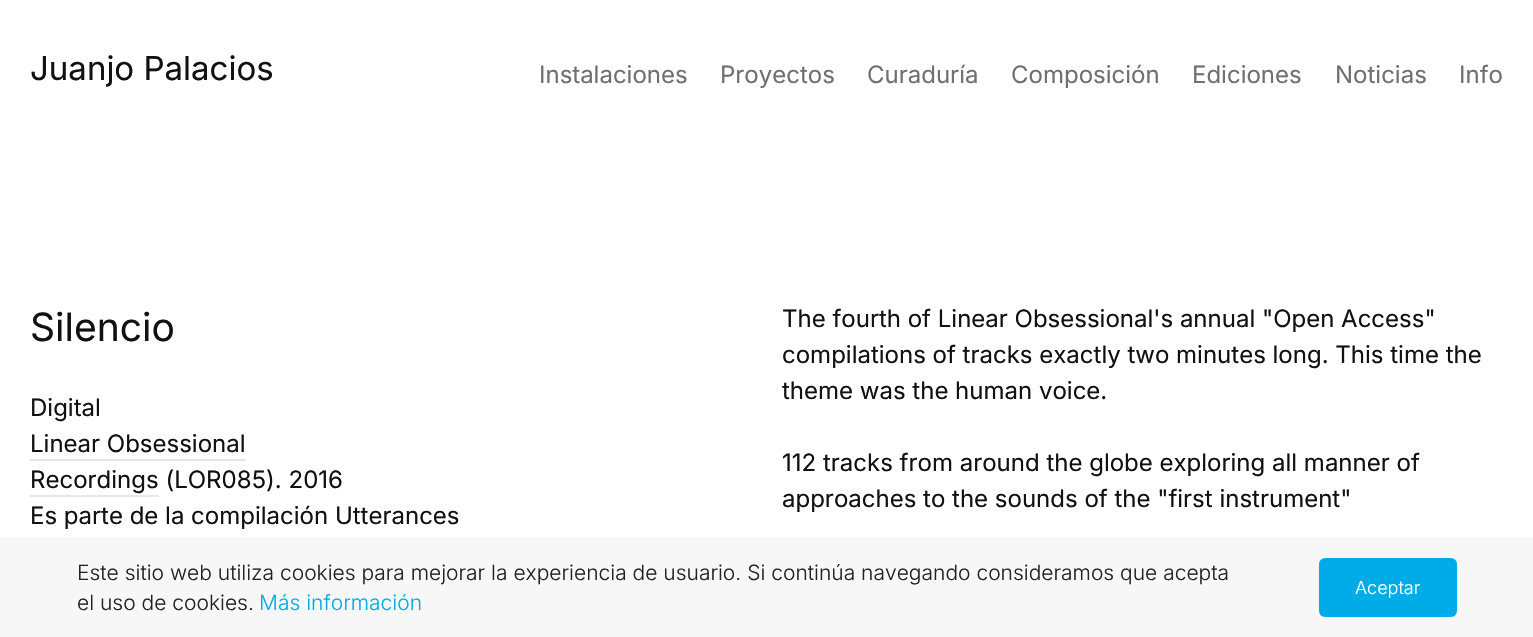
void draw(SkCanvas* canvas) {
    SkPaint paint;
    paint.setAntiAlias(true);
    auto face = [&](const char* family, int weight, float size, bool italic = false) {
        SkFontStyle style(weight, SkFontStyle::kNormal_Width,
            italic ? SkFontStyle::kItalic_Slant : SkFontStyle::kUpright_Slant);
        SkFont result(fontMgr->matchFamilyStyle(family, style), size);
        result.setSubpixel(true);
        return result;
    };
    auto write = [&](const char* s, float x, float y, const SkFont& font, SkColor color) {
        SkPaint ink(SkColor4f::FromColor(color));
        ink.setAntiAlias(true);
        canvas->drawString(s, x, y, font, ink);
    };
    auto block = [&](float x, float y, float w, float h, SkColor color) {
        SkPaint ink(SkColor4f::FromColor(color));
        ink.setAntiAlias(true);
        canvas->drawRect(SkRect::MakeXYWH(x, y, w, h), ink);
    };
    auto card = [&](float x, float y, float w, float h, float radius, SkColor color) {
        SkPaint ink(SkColor4f::FromColor(color));
        ink.setAntiAlias(true);
        canvas->drawRoundRect(SkRect::MakeXYWH(x, y, w, h), radius, radius, ink);
    };
    canvas->clear(SK_ColorWHITE);
    auto kFont1 = face("Inter", 400, 33);
    write("Juanjo Palacios", 30, 80, kFont1, SkColorSetRGB(17, 17, 17));
    auto kFont2 = face("Inter", 400, 24);
    write("Instalaciones", 539, 83, kFont2, SkColorSetRGB(112, 112, 112));
    write("Proyectos", 720, 83, kFont2, SkColorSetRGB(112, 112, 112));
    write("Curaduría", 867, 83, kFont2, SkColorSetRGB(112, 112, 112));
    write("Composición", 1011, 83, kFont2, SkColorSetRGB(112, 112, 112));
    write("Ediciones", 1192, 83, kFont2, SkColorSetRGB(112, 112, 112));
    write("Noticias", 1335, 83, kFont2, SkColorSetRGB(112, 112, 112));
    write("Info", 1459, 83, kFont2, SkColorSetRGB(112, 112, 112));
    auto kFont3 = face("Inter", 400, 39);
    write("Silencio", 30, 341, kFont3, SkColorSetRGB(17, 17, 17));
    write("Digital", 30, 416, kFont2, SkColorSetRGB(17, 17, 17));
    write("Linear Obsessional", 30, 452, kFont2, SkColorSetRGB(17, 17, 17));
    block(30, 459, 216, 2, SkColorSetRGB(231, 231, 231));
    write("Recordings (LOR085). 2016", 30, 488, kFont2, SkColorSetRGB(17, 17, 17));
    block(30, 495, 129, 2, SkColorSetRGB(231, 231, 231));
    write("Es parte de la compilación Utterances", 30, 524, kFont2, SkColorSetRGB(17, 17, 17));
    write("The fourth of Linear Obsessional's annual \"Open Access\"", 782, 327, kFont2, SkColorSetRGB(17, 17, 17));
    write("compilations of tracks exactly two minutes long. This time the", 782, 363, kFont2, SkColorSetRGB(17, 17, 17));
    write("theme was the human voice.", 782, 399, kFont2, SkColorSetRGB(17, 17, 17));
    write("112 tracks from around the globe exploring all manner of", 782, 471, kFont2, SkColorSetRGB(17, 17, 17));
    write("approaches to the sounds of the \"first instrument\"", 782, 507, kFont2, SkColorSetRGB(17, 17, 17));
    block(0, 537, 1533, 100, SkColorSetRGB(247, 247, 247));
    auto kFont4 = face("Inter", 300, 21);
    write("Este sitio web utiliza cookies para mejorar la experiencia de usuario. Si continúa navegando consideramos que acepta", 77, 580, kFont4, SkColorSetRGB(34, 34, 34));
    write("el uso de cookies.", 77, 610, kFont4, SkColorSetRGB(34, 34, 34));
    write("Más información", 259, 610, kFont4, SkColorSetRGB(0, 172, 230));
    card(1319, 558, 138, 59, 6, SkColorSetRGB(0, 172, 232));
    auto kFont5 = face("Inter", 300, 18);
    write("Aceptar", 1355, 594, kFont5, SK_ColorWHITE);
}
